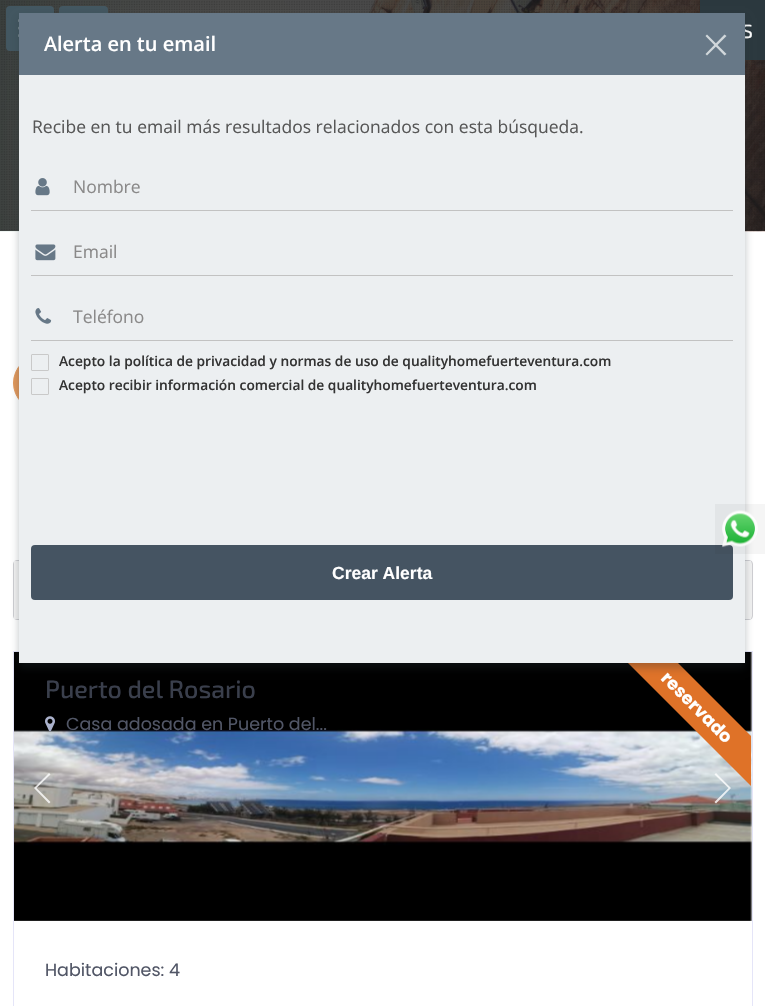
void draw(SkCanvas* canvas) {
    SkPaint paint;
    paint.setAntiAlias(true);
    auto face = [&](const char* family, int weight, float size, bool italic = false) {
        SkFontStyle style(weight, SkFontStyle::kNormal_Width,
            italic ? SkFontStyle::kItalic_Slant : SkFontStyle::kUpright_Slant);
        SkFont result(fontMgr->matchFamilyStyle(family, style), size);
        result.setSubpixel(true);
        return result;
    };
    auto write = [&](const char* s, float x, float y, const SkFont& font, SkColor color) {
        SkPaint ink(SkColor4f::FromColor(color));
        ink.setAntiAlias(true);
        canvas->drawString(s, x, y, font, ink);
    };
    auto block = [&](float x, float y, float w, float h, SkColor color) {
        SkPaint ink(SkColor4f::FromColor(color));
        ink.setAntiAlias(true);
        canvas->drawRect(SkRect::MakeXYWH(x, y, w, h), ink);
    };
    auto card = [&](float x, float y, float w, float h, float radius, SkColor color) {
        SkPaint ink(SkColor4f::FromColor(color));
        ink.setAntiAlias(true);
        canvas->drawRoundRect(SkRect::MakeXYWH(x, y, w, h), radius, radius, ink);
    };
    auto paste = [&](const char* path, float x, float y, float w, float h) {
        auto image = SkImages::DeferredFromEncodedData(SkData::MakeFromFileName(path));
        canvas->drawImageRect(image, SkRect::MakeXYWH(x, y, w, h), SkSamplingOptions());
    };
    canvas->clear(SK_ColorWHITE);
    paste("pic1.png", 0, 0, 765, 232);
    paste("pic2.png", 0, 0, 765, 231);
    card(6, 6, 48, 45, 4, SkColorSetRGB(66, 86, 96));
    paste("pic3.png", 18, 19, 1, 18);
    card(59, 6, 49, 45, 4, SkColorSetRGB(66, 86, 96));
    block(700, 0, 65, 60, SkColorSetRGB(43, 56, 62));
    auto kFont1 = face("Exo 2", 500, 19);
    write("S", 742, 38, kFont1, SK_ColorWHITE);
    paint.setColor(SkColorSetRGB(224, 151, 91));
    canvas->drawCircle(41, 383, 27.5f, paint);
    paint.setStyle(SkPaint::kStroke_Style);
    paint.setStrokeWidth(1);
    canvas->drawCircle(41, 383, 27.5f, paint);
    paint.setStyle(SkPaint::kFill_Style);
    paint.setColor(SkColorSetRGB(241, 241, 241));
    canvas->drawRoundRect(SkRect::MakeXYWH(13.5f, 560.5f, 739, 59), 3.5f, 3.5f, paint);
    paint.setStyle(SkPaint::kStroke_Style);
    paint.setColor(SkColorSetRGB(205, 205, 209));
    canvas->drawRoundRect(SkRect::MakeXYWH(13.5f, 560.5f, 739, 59), 3.5f, 3.5f, paint);
    block(14, 561, 737, 58, SkColorSetRGB(241, 241, 241));
    paint.setColor(SkColorSetRGB(229, 229, 248));
    canvas->drawRect(SkRect::MakeXYWH(13.5f, 651.5f, 739, 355), paint);
    paste("pic7.png", 14, 652, 738, 269);
    paint.setStyle(SkPaint::kFill_Style);
    paint.setColor(SkColorSetARGB(204, 255, 255, 255));
    canvas->drawPath(SkPathBuilder().moveTo(731, 788).lineTo(716, 803.5f).lineTo(714.5f, 802).lineTo(728.5f, 788).lineTo(714.5f, 774.5f).lineTo(716, 773).close().detach(), paint);
    canvas->save();
    canvas->clipRect(SkRect::MakeXYWH(14, 653, 737, 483));
    paint.setColor(SkColorSetRGB(223, 114, 40));
    canvas->drawPath(SkPathBuilder().moveTo(644, 629).lineTo(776, 761).lineTo(751, 786).lineTo(619, 654).close().detach(), paint);
    canvas->restore();
    paint.setColor(SkColorSetARGB(77, 35, 50, 56));
    paint.setMaskFilter(SkMaskFilter::MakeBlur(kNormal_SkBlurStyle, 4));
    canvas->drawRect(SkRect::MakeXYWH(19, 18, 726, 650), paint);
    paint.setMaskFilter(nullptr);
    block(19, 75, 726, 588, SkColorSetRGB(236, 239, 241));
    block(19, 13, 726, 62, SkColorSetRGB(103, 120, 135));
    auto kFont2 = face("Noto Sans", 500, 20);
    write("A", 44, 51, kFont2, SK_ColorWHITE);
    auto kFont3 = face("Open Sans", 600, 20);
    write("lerta en tu email", 57, 51, kFont3, SK_ColorWHITE);
    paint.setColor(SkColorSetRGB(209, 215, 219));
    canvas->drawPath(SkPathBuilder().moveTo(707, 34.5f).lineTo(726.5f, 54).lineTo(724.5f, 55.5f).lineTo(705.5f, 36).close().detach(), paint);
    canvas->drawPath(SkPathBuilder().moveTo(705.5f, 54).lineTo(724.5f, 34.5f).lineTo(726.5f, 36).lineTo(707, 55.5f).close().detach(), paint);
    auto kFont4 = face("Open Sans", 400, 17.5f);
    write("Recibe en tu email más resultados relacionados con esta búsqueda.", 32, 133, kFont4, SkColorSetRGB(87, 87, 87));
    paste("pic4.png", 35, 178, 15, 18);
    block(31, 210, 702, 1, SkColorSetRGB(194, 194, 194));
    write("Nombre", 73, 193, kFont4, SkColorSetRGB(138, 137, 137));
    paste("pic5.png", 35, 244, 21, 17);
    block(31, 275, 702, 1, SkColorSetRGB(194, 194, 194));
    write("Email", 73, 258, kFont4, SkColorSetRGB(138, 137, 137));
    paste("pic6.png", 35, 308, 17, 16);
    block(31, 340, 702, 1, SkColorSetRGB(194, 194, 194));
    write("Teléfono", 73, 323, kFont4, SkColorSetRGB(138, 137, 137));
    paint.setStyle(SkPaint::kStroke_Style);
    paint.setColor(SkColorSetRGB(201, 201, 201));
    canvas->drawRoundRect(SkRect::MakeXYWH(31.5f, 354.5f, 17, 16), 0.5f, 0.5f, paint);
    auto kFont5 = face("Open Sans", 600, 13.75f);
    write("Acepto la política de privacidad y normas de uso de qualityhomefuerteventura.com", 59, 366, kFont5, SkColorSetRGB(51, 51, 51));
    canvas->drawRoundRect(SkRect::MakeXYWH(31.5f, 378.5f, 17, 16), 0.5f, 0.5f, paint);
    write("Acepto recibir información comercial de qualityhomefuerteventura.com", 59, 390, kFont5, SkColorSetRGB(51, 51, 51));
    card(31, 545, 702, 55, 4, SkColorSetRGB(69, 84, 98));
    auto kFont6 = face("Liberation Sans", 700, 17.5f);
    write("Crear Alerta", 332, 579, kFont6, SK_ColorWHITE);
    paint.setStyle(SkPaint::kFill_Style);
    paint.setColor(SkColorSetARGB(204, 255, 255, 255));
    canvas->drawPath(SkPathBuilder().moveTo(34, 788).lineTo(49, 773).lineTo(50.5f, 774.5f).lineTo(36.5f, 788).lineTo(50.5f, 802).lineTo(49, 803.5f).close().detach(), paint);
    auto kFont7 = face("Exo 2", 500, 25);
    write("Puerto del Rosario", 45, 698, kFont7, SkColorSetRGB(58, 63, 76));
    auto kFont8 = face("Poppins", 700, 17.5f);
    canvas->save();
    canvas->rotate(45, 660, 679);
    write("reservado", 660, 679, kFont8, SK_ColorWHITE);
    canvas->restore();
    paste("pic8.png", 45, 716, 10, 16);
    auto kFont9 = face("Poppins", 400, 17.5f);
    write("Casa adosada en Puerto del...", 66, 730, kFont9, SkColorSetRGB(81, 86, 102));
    write("Habitaciones: 4", 45, 976, kFont9, SkColorSetRGB(81, 86, 102));
    block(715, 504, 50, 50, SkColorSetARGB(10, 0, 0, 0));
    paste("pic9.png", 722, 510, 36, 38);
}
